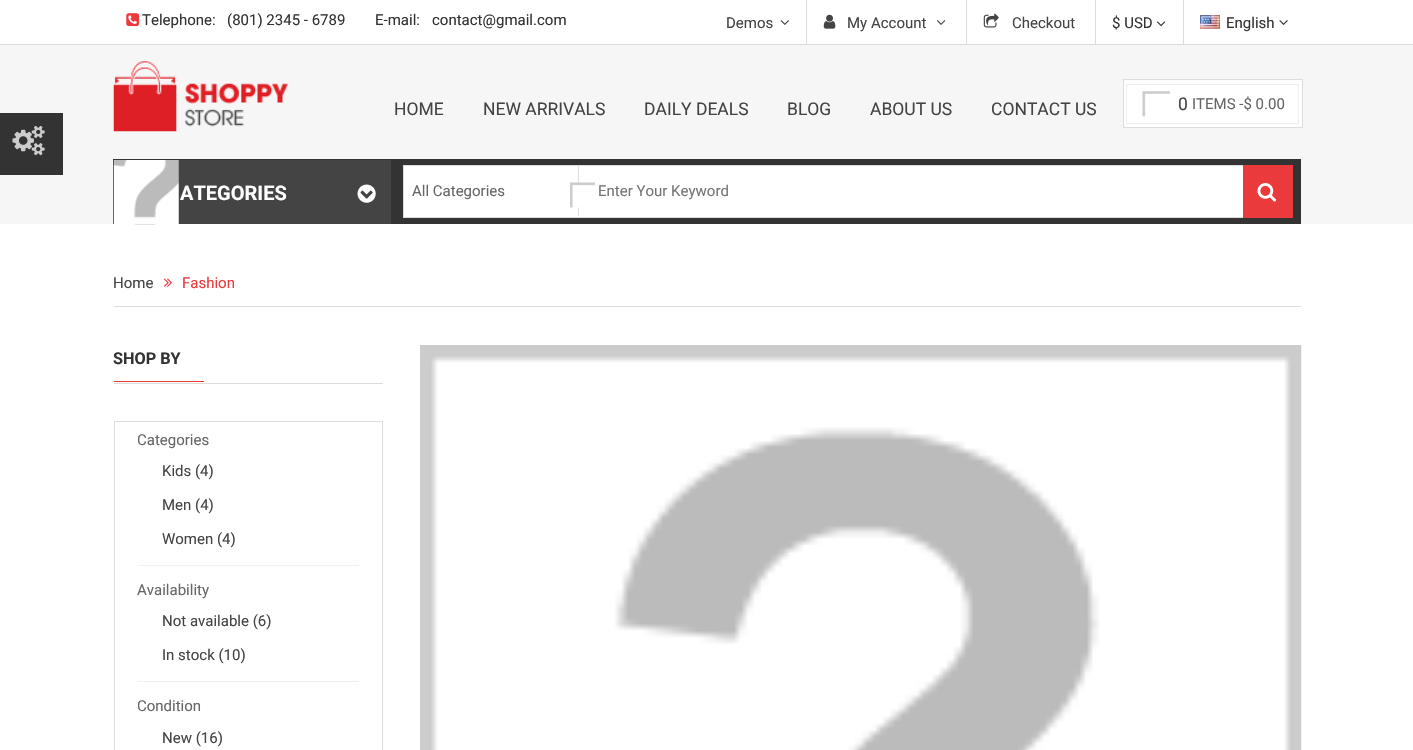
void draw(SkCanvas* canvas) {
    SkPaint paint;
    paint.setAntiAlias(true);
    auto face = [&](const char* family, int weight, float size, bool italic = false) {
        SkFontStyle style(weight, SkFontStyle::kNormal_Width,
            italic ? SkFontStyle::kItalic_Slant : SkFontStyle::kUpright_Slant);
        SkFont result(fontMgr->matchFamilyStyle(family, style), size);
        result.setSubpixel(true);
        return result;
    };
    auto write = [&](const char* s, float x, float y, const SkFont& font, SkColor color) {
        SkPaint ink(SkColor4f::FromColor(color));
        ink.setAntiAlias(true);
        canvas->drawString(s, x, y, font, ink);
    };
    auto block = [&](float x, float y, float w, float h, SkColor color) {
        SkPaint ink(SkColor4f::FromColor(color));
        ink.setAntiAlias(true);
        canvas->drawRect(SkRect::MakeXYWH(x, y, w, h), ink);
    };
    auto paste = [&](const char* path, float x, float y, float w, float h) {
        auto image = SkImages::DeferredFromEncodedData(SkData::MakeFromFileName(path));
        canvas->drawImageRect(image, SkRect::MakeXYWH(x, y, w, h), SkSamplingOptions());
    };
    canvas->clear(SK_ColorWHITE);
    block(0, 45, 1413, 179, SkColorSetRGB(246, 246, 246));
    block(0, 113, 63, 62, SkColorSetRGB(51, 51, 51));
    paste("pic1.png", 12, 125, 33, 31);
    block(0, 44, 1413, 1, SkColorSetRGB(221, 221, 221));
    paste("pic2.png", 126, 13, 14, 14);
    auto kFont1 = face("Roboto", 400, 15);
    write("Telephone:", 142, 25, kFont1, SkColorSetRGB(51, 51, 51));
    write("(801) 2345 - 6789", 227, 25, kFont1, SkColorSetRGB(51, 51, 51));
    write("E-mail:", 375, 25, kFont1, SkColorSetRGB(51, 51, 51));
    write("contact@gmail.com", 432, 25, kFont1, SkColorSetRGB(51, 51, 51));
    write("Demos", 726, 28, kFont1, SkColorSetRGB(68, 68, 68));
    paste("pic3.png", 780, 20, 9, 5);
    block(806, 0, 1, 45, SkColorSetRGB(221, 221, 221));
    paste("pic4.png", 823, 14, 13, 15);
    write("My Account", 847, 28, kFont1, SkColorSetRGB(68, 68, 68));
    paste("pic5.png", 936, 20, 10, 5);
    block(966, 0, 1, 45, SkColorSetRGB(221, 221, 221));
    paste("pic6.png", 983, 13, 16, 15);
    write("Checkout", 1012, 28, kFont1, SkColorSetRGB(68, 68, 68));
    block(1183, 0, 1, 45, SkColorSetRGB(221, 221, 221));
    block(1095, 0, 1, 45, SkColorSetRGB(221, 221, 221));
    write("$ USD", 1112, 28, kFont1, SkColorSetRGB(51, 51, 51));
    paste("pic7.png", 1157, 21, 9, 6);
    paste("pic8.png", 1200, 15, 20, 14);
    write("English", 1226, 28, kFont1, SkColorSetRGB(51, 51, 51));
    paste("pic9.png", 1279, 20, 9, 5);
    paste("pic10.png", 113, 60, 176, 72);
    auto kFont2 = face("Roboto", 400, 17.5f);
    write("HOME", 394, 115, kFont2, SkColorSetRGB(68, 68, 68));
    write("NEW ARRIVALS", 483, 115, kFont2, SkColorSetRGB(68, 68, 68));
    write("DAILY DEALS", 644, 115, kFont2, SkColorSetRGB(68, 68, 68));
    write("BLOG", 787, 115, kFont2, SkColorSetRGB(68, 68, 68));
    write("ABOUT US", 870, 115, kFont2, SkColorSetRGB(68, 68, 68));
    write("CONTACT US", 991, 115, kFont2, SkColorSetRGB(68, 68, 68));
    paint.setColor(SK_ColorWHITE);
    canvas->drawRect(SkRect::MakeXYWH(1123.5f, 79.5f, 179, 48), paint);
    paint.setStyle(SkPaint::kStroke_Style);
    paint.setStrokeWidth(1);
    paint.setColor(SkColorSetRGB(221, 221, 221));
    canvas->drawRect(SkRect::MakeXYWH(1123.5f, 79.5f, 179, 48), paint);
    paint.setColor(SkColorSetRGB(238, 238, 238));
    canvas->drawRect(SkRect::MakeXYWH(1126.5f, 84.5f, 172, 39), paint);
    paste("pic11.png", 1142, 91, 28, 26);
    write("0", 1178, 110, kFont2, SkColorSetRGB(68, 68, 68));
    write("ITEMS -$ 0.00", 1192, 109, kFont1, SkColorSetRGB(102, 102, 102));
    block(113, 159, 1188, 65, SkColorSetRGB(51, 51, 51));
    block(178, 160, 213, 64, SkColorSetRGB(68, 68, 68));
    paste("pic12.png", 113, 160, 66, 65);
    auto kFont3 = face("Roboto", 700, 20);
    write("ATEGORIES", 180, 200, kFont3, SK_ColorWHITE);
    paste("pic13.png", 357, 184, 19, 19);
    block(404, 166, 839, 51, SK_ColorWHITE);
    paint.setColor(SkColorSetRGB(221, 221, 221));
    canvas->drawRect(SkRect::MakeXYWH(403.5f, 165.5f, 889, 52), paint);
    block(578, 166, 1, 50, SkColorSetRGB(221, 221, 221));
    write("All Categories", 412, 196, kFont1, SkColorSetRGB(102, 102, 102));
    paste("pic14.png", 570, 182, 25, 26);
    write("Enter Your Keyword", 598, 196, kFont1, SkColorSetRGB(117, 117, 117));
    block(1243, 165, 50, 53, SkColorSetRGB(234, 58, 60));
    paste("pic15.png", 1257, 183, 19, 19);
    block(114, 306, 1187, 1, SkColorSetRGB(221, 221, 221));
    write("Home", 113, 288, kFont1, SkColorSetRGB(68, 68, 68));
    paste("pic16.png", 163, 278, 9, 9);
    write("Fashion", 182, 288, kFont1, SkColorSetRGB(234, 58, 60));
    block(114, 383, 269, 1, SkColorSetRGB(221, 221, 221));
    block(114, 381, 90, 1, SkColorSetRGB(234, 58, 60));
    auto kFont4 = face("Roboto", 700, 16.25f);
    write("SHOP BY", 113, 364, kFont4, SkColorSetRGB(51, 51, 51));
    canvas->drawRect(SkRect::MakeXYWH(114.5f, 421.5f, 268, 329), paint);
    block(138, 565, 221, 1, SkColorSetRGB(240, 240, 240));
    canvas->save();
    canvas->clipRect(SkRect::MakeXYWH(138, 429, 221, 136));
    write("Categories", 137, 445, kFont1, SkColorSetRGB(102, 102, 102));
    canvas->restore();
    write("Kids (4)", 162, 476, kFont1, SkColorSetRGB(68, 68, 68));
    write("Men (4)", 162, 510, kFont1, SkColorSetRGB(68, 68, 68));
    write("Women (4)", 162, 544, kFont1, SkColorSetRGB(68, 68, 68));
    block(138, 681, 221, 1, SkColorSetRGB(240, 240, 240));
    write("Availability", 137, 595, kFont1, SkColorSetRGB(102, 102, 102));
    write("Not available (6)", 162, 626, kFont1, SkColorSetRGB(68, 68, 68));
    write("In stock (10)", 162, 660, kFont1, SkColorSetRGB(68, 68, 68));
    canvas->save();
    canvas->clipRect(SkRect::MakeXYWH(138, 695, 221, 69));
    write("Condition", 137, 711, kFont1, SkColorSetRGB(102, 102, 102));
    canvas->restore();
    write("New (16)", 162, 743, kFont1, SkColorSetRGB(68, 68, 68));
    paste("pic17.png", 420, 345, 882, 405);
}
